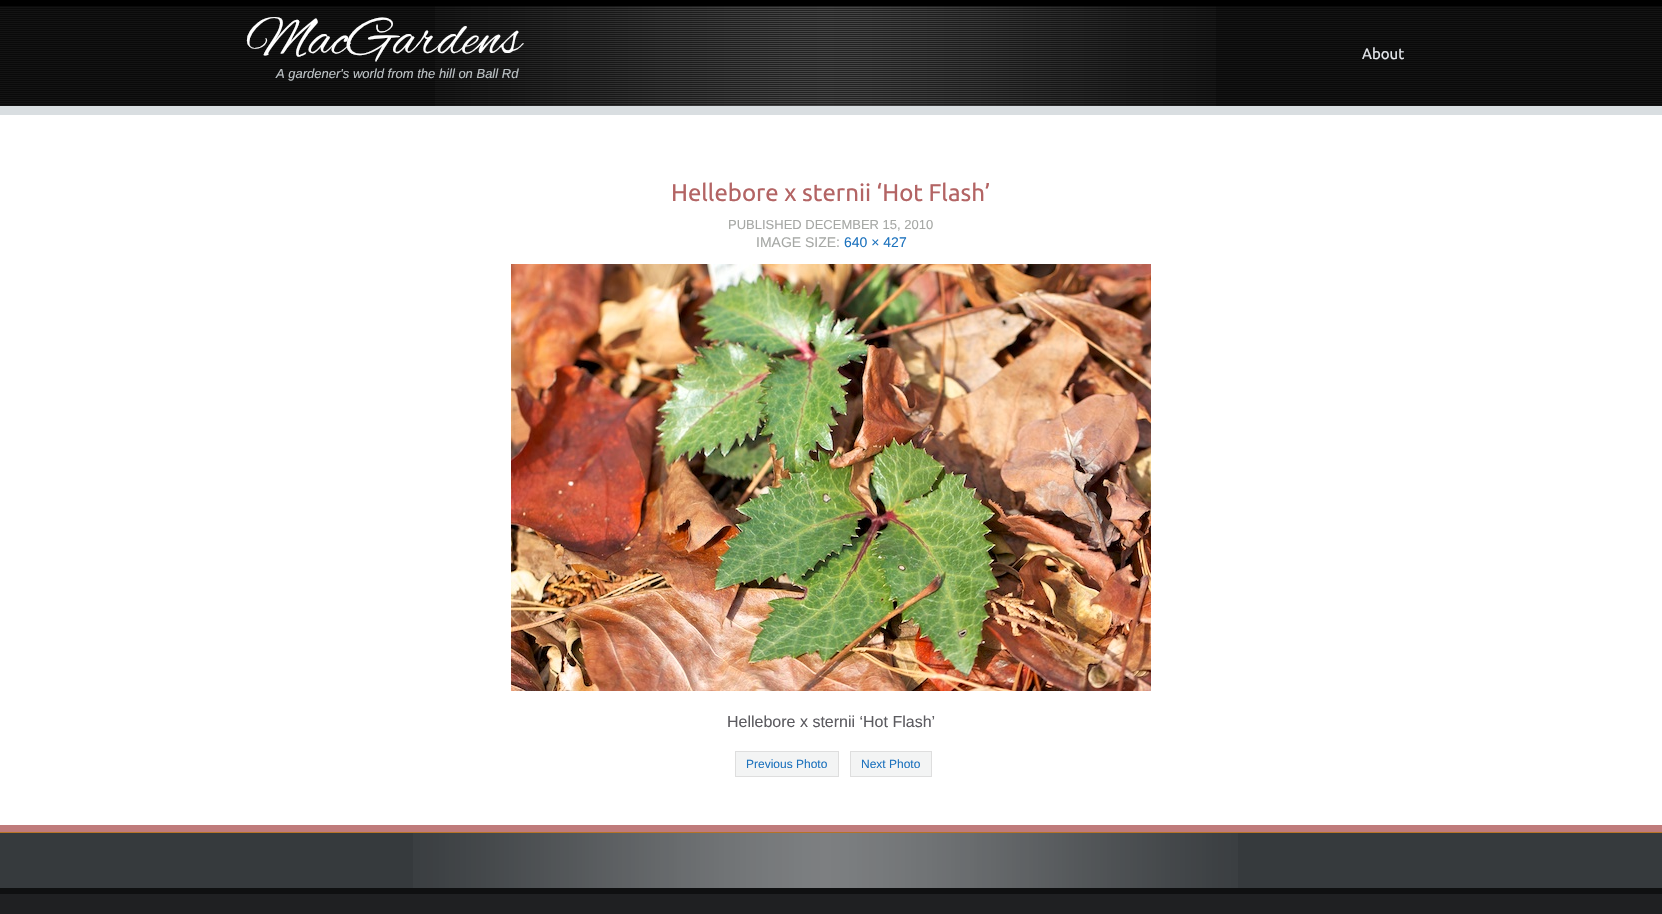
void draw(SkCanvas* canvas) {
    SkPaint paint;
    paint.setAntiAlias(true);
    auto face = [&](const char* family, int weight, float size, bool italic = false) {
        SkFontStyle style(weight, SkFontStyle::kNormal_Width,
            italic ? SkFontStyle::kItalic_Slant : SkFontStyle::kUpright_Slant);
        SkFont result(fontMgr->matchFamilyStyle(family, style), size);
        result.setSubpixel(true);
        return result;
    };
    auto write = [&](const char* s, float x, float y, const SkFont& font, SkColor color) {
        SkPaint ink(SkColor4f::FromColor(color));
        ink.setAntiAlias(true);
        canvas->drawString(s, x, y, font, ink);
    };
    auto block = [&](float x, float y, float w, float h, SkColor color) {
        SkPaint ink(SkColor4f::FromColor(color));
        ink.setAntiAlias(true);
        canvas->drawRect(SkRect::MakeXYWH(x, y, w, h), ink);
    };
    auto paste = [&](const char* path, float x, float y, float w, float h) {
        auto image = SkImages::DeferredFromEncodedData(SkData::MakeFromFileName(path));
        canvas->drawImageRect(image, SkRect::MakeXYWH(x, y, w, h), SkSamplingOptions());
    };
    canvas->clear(SK_ColorBLACK);
    block(0, 6, 1662, 100, SkColorSetRGB(19, 19, 19));
    block(0, 106, 1662, 9, SkColorSetRGB(217, 222, 225));
    paste("pic1.png", 435, 6, 781, 100);
    paste("pic2.png", 0, 6, 1662, 99);
    auto kFont1 = face("Alex Brush", 400, 55.5f);
    write("MacGardens", 246, 53, kFont1, SK_ColorWHITE);
    auto kFont2 = face("Liberation Sans", 400, 13, true);
    write("A gardener's world from the hill on Ball Rd", 276, 78, kFont2, SkColorSetRGB(189, 195, 198));
    auto kFont3 = face("Ubuntu", 400, 15);
    write("About", 1362, 59, kFont3, SkColorSetRGB(228, 230, 235));
    block(0, 115, 1662, 710, SK_ColorWHITE);
    block(0, 825, 1662, 7, SkColorSetRGB(191, 123, 123));
    auto kFont4 = face("Ubuntu", 400, 24);
    write("Hellebore x sternii ‘Hot Flash’", 671, 201, kFont4, SkColorSetRGB(179, 100, 100));
    auto kFont5 = face("Liberation Sans", 400, 13);
    write("PUBLISHED DECEMBER 15, 2010", 728, 229, kFont5, SkColorSetRGB(166, 168, 165));
    auto kFont6 = face("Liberation Sans", 400, 14);
    write("IMAGE SIZE:", 756, 247, kFont6, SkColorSetRGB(166, 168, 165));
    write("640 × 427", 844, 247, kFont6, SkColorSetRGB(30, 115, 190));
    paste("pic3.png", 511, 264, 640, 427);
    auto kFont7 = face("Liberation Sans", 400, 16);
    write("Hellebore x sternii ‘Hot Flash’", 727, 727, kFont7, SkColorSetRGB(92, 91, 96));
    paint.setColor(SkColorSetRGB(243, 244, 244));
    canvas->drawRect(SkRect::MakeXYWH(735.5f, 751.5f, 103, 25), paint);
    paint.setStyle(SkPaint::kStroke_Style);
    paint.setStrokeWidth(1);
    paint.setColor(SkColorSetRGB(222, 222, 222));
    canvas->drawRect(SkRect::MakeXYWH(735.5f, 751.5f, 103, 25), paint);
    auto kFont8 = face("Liberation Sans", 400, 12);
    write("Previous Photo", 746, 768, kFont8, SkColorSetRGB(30, 115, 190));
    paint.setStyle(SkPaint::kFill_Style);
    paint.setColor(SkColorSetRGB(243, 244, 244));
    canvas->drawRect(SkRect::MakeXYWH(850.5f, 751.5f, 81, 25), paint);
    paint.setStyle(SkPaint::kStroke_Style);
    paint.setColor(SkColorSetRGB(222, 222, 222));
    canvas->drawRect(SkRect::MakeXYWH(850.5f, 751.5f, 81, 25), paint);
    write("Next Photo", 861, 768, kFont8, SkColorSetRGB(30, 115, 190));
    block(0, 833, 1662, 55, SkColorSetRGB(54, 58, 61));
    block(0, 832, 1662, 1, SkColorSetRGB(181, 115, 39));
    paste("pic4.png", 413, 833, 825, 55);
    block(0, 888, 1662, 6, SkColorSetRGB(15, 16, 17));
    block(0, 894, 1662, 20, SkColorSetRGB(31, 32, 34));
}
